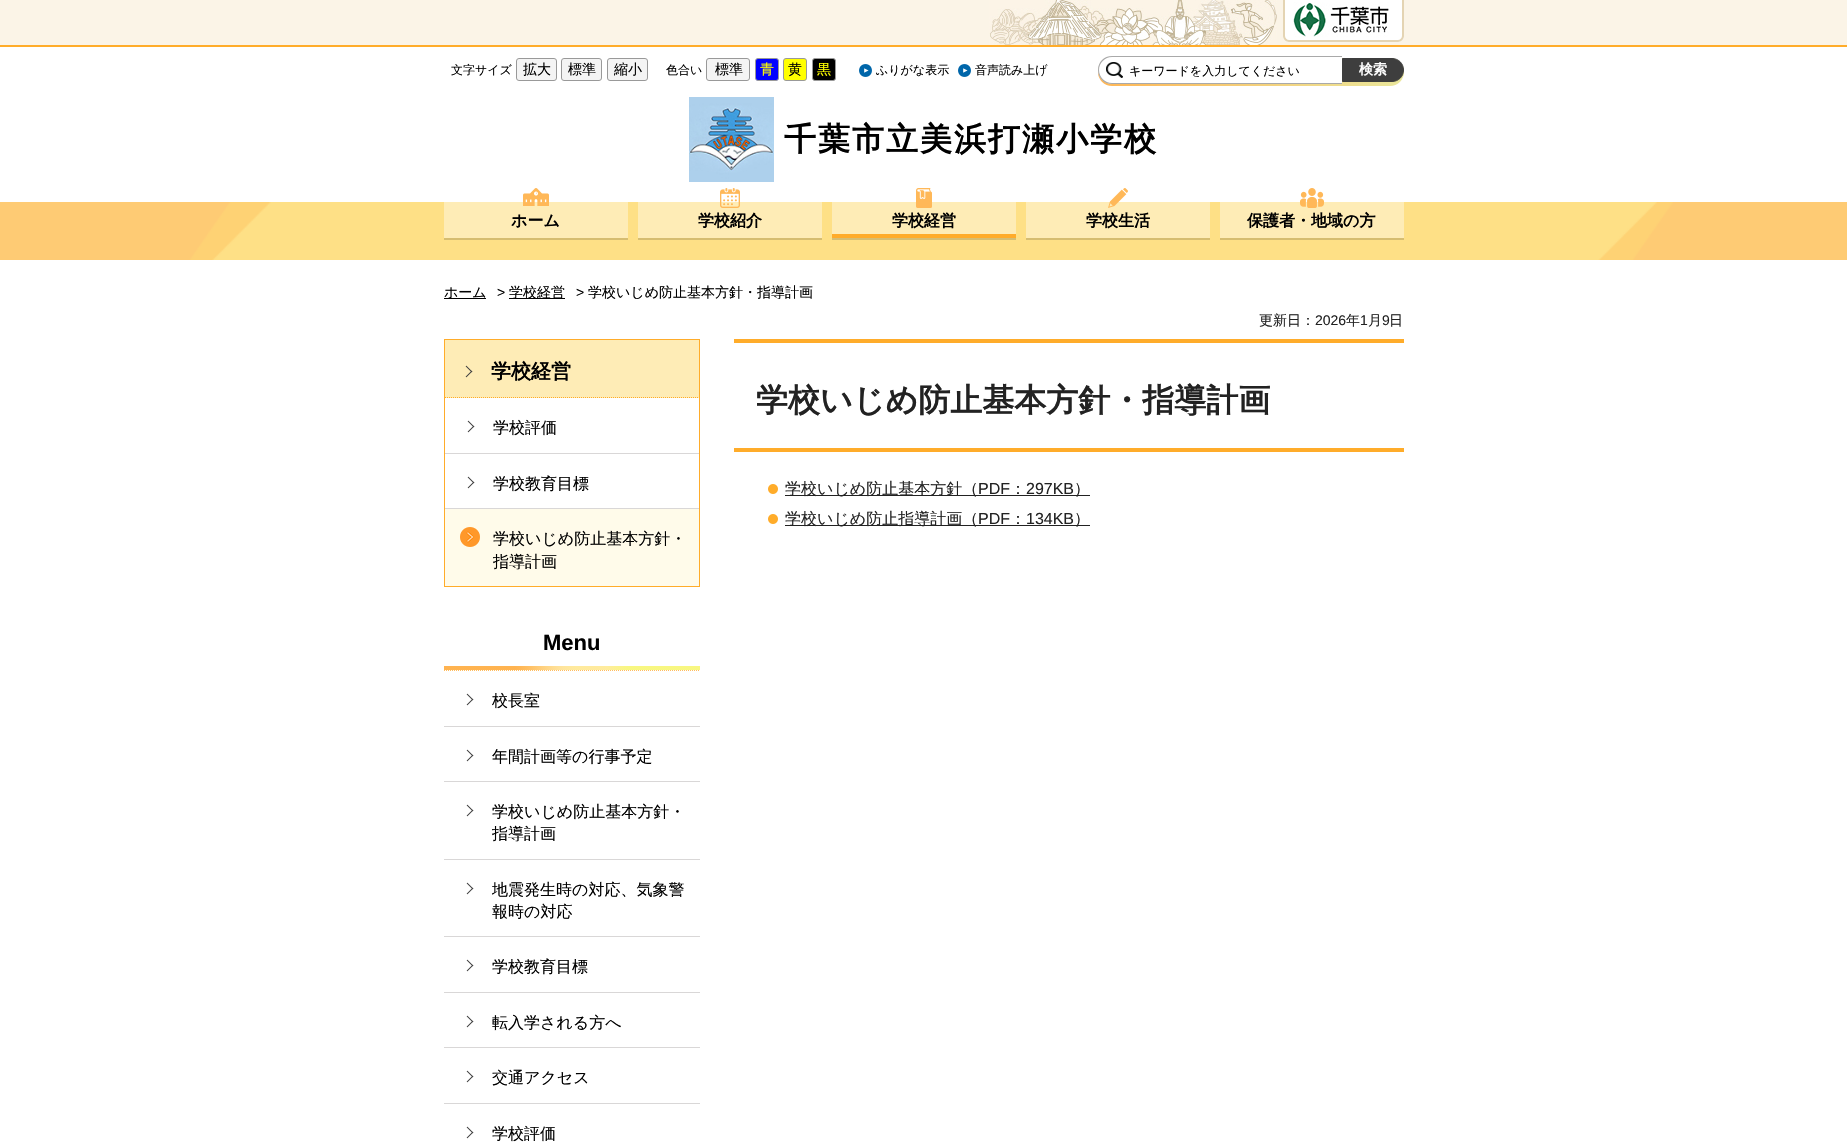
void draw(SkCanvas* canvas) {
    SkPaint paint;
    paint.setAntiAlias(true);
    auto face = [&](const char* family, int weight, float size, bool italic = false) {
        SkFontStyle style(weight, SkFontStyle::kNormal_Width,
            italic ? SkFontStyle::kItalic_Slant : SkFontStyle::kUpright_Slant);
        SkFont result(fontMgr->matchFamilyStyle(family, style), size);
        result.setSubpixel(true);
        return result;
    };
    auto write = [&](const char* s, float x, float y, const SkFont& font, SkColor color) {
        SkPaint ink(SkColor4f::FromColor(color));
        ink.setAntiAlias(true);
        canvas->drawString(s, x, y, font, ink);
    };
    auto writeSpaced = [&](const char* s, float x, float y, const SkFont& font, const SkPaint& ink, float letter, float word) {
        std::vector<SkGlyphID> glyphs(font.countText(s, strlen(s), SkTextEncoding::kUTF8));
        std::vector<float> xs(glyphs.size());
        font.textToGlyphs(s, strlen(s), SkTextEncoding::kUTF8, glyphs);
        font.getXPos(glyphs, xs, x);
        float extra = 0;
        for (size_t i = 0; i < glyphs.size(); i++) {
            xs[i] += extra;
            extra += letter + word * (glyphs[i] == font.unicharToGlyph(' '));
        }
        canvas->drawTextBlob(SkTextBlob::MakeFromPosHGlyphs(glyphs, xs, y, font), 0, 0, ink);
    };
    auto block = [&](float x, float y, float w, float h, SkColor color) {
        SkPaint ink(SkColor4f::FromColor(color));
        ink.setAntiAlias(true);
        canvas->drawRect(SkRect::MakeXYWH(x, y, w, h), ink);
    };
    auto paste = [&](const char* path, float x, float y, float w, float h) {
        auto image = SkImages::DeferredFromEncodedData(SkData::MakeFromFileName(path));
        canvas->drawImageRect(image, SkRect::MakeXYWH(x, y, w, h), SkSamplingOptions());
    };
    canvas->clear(SK_ColorWHITE);
    block(0, 0, 1847, 45, SkColorSetRGB(251, 244, 231));
    block(0, 45, 1847, 2, SkColorSetRGB(255, 172, 42));
    paste("pic1.png", 989, 0, 288, 45);
    paint.setColor(SK_ColorWHITE);
    canvas->drawPath(SkPathBuilder().moveTo(1283, 0).lineTo(1404, 0).lineTo(1404, 36).cubicTo(1404, 39.5f, 1401.5f, 42, 1398, 42).lineTo(1289, 42).cubicTo(1285.5f, 42, 1283, 39.5f, 1283, 36).close().detach(), paint);
    paste("pic2.png", 1293, 2, 96, 36);
    paint.setColor(SkColorSetRGB(228, 212, 179));
    canvas->drawPath(SkPathBuilder(SkPathFillType::kEvenOdd).moveTo(1283, 0).lineTo(1404, 0).lineTo(1404, 36).cubicTo(1404, 39, 1401, 42, 1398, 42).lineTo(1289, 42).cubicTo(1286, 42, 1283, 39, 1283, 36).close().moveTo(1285, 0).lineTo(1402, 0).lineTo(1402, 36).cubicTo(1402, 38, 1400, 40, 1398, 40).lineTo(1289, 40).cubicTo(1287, 40, 1285, 38, 1285, 36).close().detach(), paint);
    auto kFont1 = face("WenQuanYi Zen Hei", 500, 12);
    write("文字サイズ", 451, 74, kFont1, SK_ColorBLACK);
    paint.setColor(SkColorSetRGB(244, 244, 244));
    canvas->drawRoundRect(SkRect::MakeXYWH(516.5f, 58.5f, 40, 22), 2.5f, 2.5f, paint);
    paint.setStyle(SkPaint::kStroke_Style);
    paint.setStrokeWidth(1);
    paint.setColor(SkColorSetRGB(153, 153, 153));
    canvas->drawRoundRect(SkRect::MakeXYWH(516.5f, 58.5f, 40, 22), 2.5f, 2.5f, paint);
    auto kFont2 = face("WenQuanYi Zen Hei", 500, 14);
    write("拡大", 523, 74, kFont2, SK_ColorBLACK);
    paint.setStyle(SkPaint::kFill_Style);
    paint.setColor(SkColorSetRGB(244, 244, 244));
    canvas->drawRoundRect(SkRect::MakeXYWH(561.5f, 58.5f, 40, 22), 2.5f, 2.5f, paint);
    paint.setStyle(SkPaint::kStroke_Style);
    paint.setColor(SkColorSetRGB(153, 153, 153));
    canvas->drawRoundRect(SkRect::MakeXYWH(561.5f, 58.5f, 40, 22), 2.5f, 2.5f, paint);
    write("標準", 568, 74, kFont2, SK_ColorBLACK);
    paint.setStyle(SkPaint::kFill_Style);
    paint.setColor(SkColorSetRGB(244, 244, 244));
    canvas->drawRoundRect(SkRect::MakeXYWH(607.5f, 58.5f, 40, 22), 2.5f, 2.5f, paint);
    paint.setStyle(SkPaint::kStroke_Style);
    paint.setColor(SkColorSetRGB(153, 153, 153));
    canvas->drawRoundRect(SkRect::MakeXYWH(607.5f, 58.5f, 40, 22), 2.5f, 2.5f, paint);
    write("縮小", 614, 74, kFont2, SK_ColorBLACK);
    write("色合い", 666, 74, kFont1, SK_ColorBLACK);
    paint.setStyle(SkPaint::kFill_Style);
    paint.setColor(SkColorSetRGB(244, 244, 244));
    canvas->drawRoundRect(SkRect::MakeXYWH(706.5f, 58.5f, 43, 22), 2.5f, 2.5f, paint);
    paint.setStyle(SkPaint::kStroke_Style);
    paint.setColor(SkColorSetRGB(153, 153, 153));
    canvas->drawRoundRect(SkRect::MakeXYWH(706.5f, 58.5f, 43, 22), 2.5f, 2.5f, paint);
    write("標準", 715, 74, kFont2, SK_ColorBLACK);
    paint.setStyle(SkPaint::kFill_Style);
    paint.setColor(SkColorSetRGB(0, 0, 255));
    canvas->drawRoundRect(SkRect::MakeXYWH(755.5f, 58.5f, 23, 22), 2.5f, 2.5f, paint);
    paint.setStyle(SkPaint::kStroke_Style);
    paint.setColor(SkColorSetRGB(153, 153, 153));
    canvas->drawRoundRect(SkRect::MakeXYWH(755.5f, 58.5f, 23, 22), 2.5f, 2.5f, paint);
    write("青", 760, 74, kFont2, SkColorSetRGB(255, 255, 0));
    paint.setStyle(SkPaint::kFill_Style);
    paint.setColor(SkColorSetRGB(255, 255, 0));
    canvas->drawRoundRect(SkRect::MakeXYWH(783.5f, 58.5f, 23, 22), 2.5f, 2.5f, paint);
    paint.setStyle(SkPaint::kStroke_Style);
    paint.setColor(SkColorSetRGB(153, 153, 153));
    canvas->drawRoundRect(SkRect::MakeXYWH(783.5f, 58.5f, 23, 22), 2.5f, 2.5f, paint);
    write("黄", 788, 74, kFont2, SK_ColorBLACK);
    paint.setStyle(SkPaint::kFill_Style);
    paint.setColor(SK_ColorBLACK);
    canvas->drawRoundRect(SkRect::MakeXYWH(812.5f, 58.5f, 23, 22), 2.5f, 2.5f, paint);
    paint.setStyle(SkPaint::kStroke_Style);
    paint.setColor(SkColorSetRGB(153, 153, 153));
    canvas->drawRoundRect(SkRect::MakeXYWH(812.5f, 58.5f, 23, 22), 2.5f, 2.5f, paint);
    write("黒", 817, 74, kFont2, SkColorSetRGB(255, 255, 0));
    paste("pic3.png", 859, 64, 13, 13);
    write("ふりがな表示", 876, 74, kFont1, SK_ColorBLACK);
    paste("pic3.png", 958, 64, 13, 13);
    write("音声読み上げ", 975, 74, kFont1, SK_ColorBLACK);
    paint.setStyle(SkPaint::kFill_Style);
    {
        const SkColor colors[] = {SkColorSetRGB(255, 182, 85), SkColorSetRGB(234, 231, 156)};
        const float stops[] = {0, 1};
        const SkPoint ends[] = {{1098, 72}, {1404, 72}};
        paint.setShader(SkGradientShader::MakeLinear(ends, colors, stops, 2, SkTileMode::kClamp));
        paint.setAlpha(255);
    }
    canvas->drawRoundRect(SkRect::MakeXYWH(1098, 58, 306, 28), 14, 14, paint);
    paint.setShader(nullptr);
    paint.setColor(SK_ColorWHITE);
    canvas->drawPath(SkPathBuilder().moveTo(1112, 56).lineTo(1342, 56).lineTo(1342, 84).lineTo(1112, 84).cubicTo(1104.5f, 84, 1098, 77.5f, 1098, 70).cubicTo(1098, 62.5f, 1104.5f, 56, 1112, 56).close().detach(), paint);
    paint.setColor(SkColorSetRGB(169, 169, 169));
    canvas->drawPath(SkPathBuilder(SkPathFillType::kEvenOdd).moveTo(1112, 56).lineTo(1342, 56).lineTo(1342, 84).lineTo(1112, 84).cubicTo(1104, 84, 1098, 78, 1098, 70).cubicTo(1098, 62, 1104, 56, 1112, 56).close().moveTo(1112, 57).lineTo(1342, 57).lineTo(1342, 83).lineTo(1112, 83).cubicTo(1105, 83, 1099, 77, 1099, 70).cubicTo(1099, 63, 1105, 57, 1112, 57).close().detach(), paint);
    paste("pic4.png", 1106, 62, 17, 16);
    write("キーワードを入力してください", 1129, 75, kFont1, SK_ColorBLACK);
    paint.setColor(SkColorSetRGB(62, 62, 62));
    canvas->drawPath(SkPathBuilder().moveTo(1342.5f, 58.5f).lineTo(1392, 58.5f).cubicTo(1398.5f, 58.5f, 1403.5f, 63.5f, 1403.5f, 70).cubicTo(1403.5f, 76.5f, 1398.5f, 81.5f, 1392, 81.5f).lineTo(1342.5f, 81.5f).close().detach(), paint);
    paint.setStyle(SkPaint::kStroke_Style);
    canvas->drawPath(SkPathBuilder().moveTo(1342.5f, 58.5f).lineTo(1392, 58.5f).cubicTo(1398.5f, 58.5f, 1403.5f, 63.5f, 1403.5f, 70).cubicTo(1403.5f, 76.5f, 1398.5f, 81.5f, 1392, 81.5f).lineTo(1342.5f, 81.5f).close().detach(), paint);
    auto kFont3 = face("WenQuanYi Zen Hei", 700, 14);
    write("検索", 1359, 74, kFont3, SK_ColorWHITE);
    paste("pic5.png", 689, 97, 85, 85);
    auto kFont4 = face("WenQuanYi Zen Hei", 700, 32);
    paint.setStyle(SkPaint::kFill_Style);
    paint.setColor(SK_ColorBLACK);
    writeSpaced("千葉市立美浜打瀬小学校", 784, 150, kFont4, paint, 2, 0);
    paste("pic6.png", 0, 202, 1847, 58);
    block(444, 202, 184, 36, SkColorSetRGB(254, 236, 182));
    block(444, 238, 184, 2, SkColorSetRGB(214, 189, 113));
    paste("pic7.png", 523, 188, 26, 18);
    auto kFont5 = face("WenQuanYi Zen Hei", 700, 16);
    write("ホーム", 511, 226, kFont5, SK_ColorBLACK);
    block(638, 202, 184, 36, SkColorSetRGB(254, 236, 182));
    block(638, 238, 184, 2, SkColorSetRGB(214, 189, 113));
    paste("pic8.png", 720, 188, 20, 20);
    write("学校紹介", 698, 226, kFont5, SK_ColorBLACK);
    block(832, 202, 184, 32, SkColorSetRGB(254, 236, 182));
    block(832, 238, 184, 2, SkColorSetRGB(214, 189, 113));
    paste("pic9.png", 916, 188, 16, 20);
    write("学校経営", 892, 226, kFont5, SK_ColorBLACK);
    block(832, 234, 184, 4, SkColorSetRGB(255, 172, 42));
    block(1026, 202, 184, 36, SkColorSetRGB(254, 236, 182));
    block(1026, 238, 184, 2, SkColorSetRGB(214, 189, 113));
    paste("pic10.png", 1108, 188, 20, 20);
    write("学校生活", 1086, 226, kFont5, SK_ColorBLACK);
    block(1220, 202, 184, 36, SkColorSetRGB(254, 236, 182));
    block(1220, 238, 184, 2, SkColorSetRGB(214, 189, 113));
    paste("pic11.png", 1300, 188, 24, 20);
    write("保護者・地域の方", 1247, 226, kFont5, SK_ColorBLACK);
    block(444, 298, 42, 1, SK_ColorBLACK);
    write("ホーム", 444, 297, kFont2, SK_ColorBLACK);
    auto kFont6 = face("Liberation Sans", 400, 14);
    write(">", 497, 297, kFont6, SK_ColorBLACK);
    block(509, 298, 56, 1, SK_ColorBLACK);
    write("学校経営", 509, 297, kFont2, SK_ColorBLACK);
    write(">", 576, 297, kFont6, SK_ColorBLACK);
    write("学校いじめ防止基本方針・指導計画", 588, 297, kFont2, SK_ColorBLACK);
    write("更新日：", 1259, 325, kFont2, SkColorSetRGB(34, 34, 34));
    write("2026", 1315, 325, kFont6, SkColorSetRGB(34, 34, 34));
    write("年", 1346, 325, kFont2, SkColorSetRGB(34, 34, 34));
    write("1", 1360, 325, kFont6, SkColorSetRGB(34, 34, 34));
    write("月", 1368, 325, kFont2, SkColorSetRGB(34, 34, 34));
    write("9", 1382, 325, kFont6, SkColorSetRGB(34, 34, 34));
    write("日", 1389, 325, kFont2, SkColorSetRGB(34, 34, 34));
    paint.setStyle(SkPaint::kStroke_Style);
    paint.setColor(SkColorSetRGB(255, 172, 42));
    canvas->drawRect(SkRect::MakeXYWH(444.5f, 339.5f, 255, 247), paint);
    block(445, 340, 254, 58, SkColorSetRGB(254, 236, 182));
    paste("pic12.png", 465, 365, 8, 13);
    paint.setPathEffect(SkDashPathEffect::Make({{1, 1}}, 0));
    canvas->drawPath(SkPathBuilder().moveTo(445, 397.5f).lineTo(699, 397.5f).detach(), paint);
    paint.setPathEffect(nullptr);
    auto kFont7 = face("WenQuanYi Zen Hei", 700, 20);
    write("学校経営", 491, 378, kFont7, SK_ColorBLACK);
    paste("pic13.png", 467, 420, 8, 13);
    auto kFont8 = face("WenQuanYi Zen Hei", 500, 16);
    write("学校評価", 493, 433, kFont8, SK_ColorBLACK);
    paste("pic13.png", 467, 476, 8, 13);
    block(445, 453, 254, 1, SkColorSetRGB(217, 215, 215));
    write("学校教育目標", 493, 489, kFont8, SK_ColorBLACK);
    block(445, 509, 254, 77, SkColorSetRGB(255, 251, 234));
    paste("pic14.png", 460, 527, 20, 20);
    block(445, 508, 254, 1, SkColorSetRGB(217, 215, 215));
    write("学校いじめ防止基本方針・", 493, 544, kFont8, SK_ColorBLACK);
    write("指導計画", 493, 567, kFont8, SK_ColorBLACK);
    paste("pic15.png", 444, 666, 256, 4);
    paint.setColor(SkColorSetRGB(255, 189, 95));
    paint.setPathEffect(SkDashPathEffect::Make({{1, 1}}, 0));
    canvas->drawPath(SkPathBuilder().moveTo(444, 670.5f).lineTo(700, 670.5f).detach(), paint);
    paint.setPathEffect(nullptr);
    auto kFont9 = face("Liberation Sans", 700, 22);
    write("Menu", 543, 650, kFont9, SK_ColorBLACK);
    paste("pic13.png", 466, 693, 8, 13);
    write("校長室", 492, 706, kFont8, SK_ColorBLACK);
    paste("pic13.png", 466, 749, 8, 13);
    block(444, 726, 256, 1, SkColorSetRGB(217, 215, 215));
    write("年間計画等の行事予定", 492, 762, kFont8, SK_ColorBLACK);
    paste("pic13.png", 466, 804, 8, 13);
    block(444, 781, 256, 1, SkColorSetRGB(217, 215, 215));
    write("学校いじめ防止基本方針・", 492, 817, kFont8, SK_ColorBLACK);
    write("指導計画", 492, 839, kFont8, SK_ColorBLACK);
    paste("pic13.png", 466, 882, 8, 13);
    block(444, 859, 256, 1, SkColorSetRGB(217, 215, 215));
    write("地震発生時の対応、気象警", 492, 895, kFont8, SK_ColorBLACK);
    write("報時の対応", 492, 917, kFont8, SK_ColorBLACK);
    paste("pic13.png", 466, 959, 8, 13);
    block(444, 936, 256, 1, SkColorSetRGB(217, 215, 215));
    write("学校教育目標", 492, 972, kFont8, SK_ColorBLACK);
    paste("pic13.png", 466, 1015, 8, 13);
    block(444, 992, 256, 1, SkColorSetRGB(217, 215, 215));
    write("転入学される方へ", 492, 1028, kFont8, SK_ColorBLACK);
    paste("pic13.png", 466, 1070, 8, 13);
    block(444, 1047, 256, 1, SkColorSetRGB(217, 215, 215));
    write("交通アクセス", 492, 1083, kFont8, SK_ColorBLACK);
    paste("pic13.png", 466, 1126, 8, 13);
    block(444, 1103, 256, 1, SkColorSetRGB(217, 215, 215));
    write("学校評価", 492, 1139, kFont8, SK_ColorBLACK);
    block(734, 339, 670, 4, SkColorSetRGB(255, 172, 42));
    block(734, 448, 670, 4, SkColorSetRGB(255, 172, 42));
    write("学校いじめ防止基本方針・指導計画", 756, 411, kFont4, SkColorSetRGB(34, 34, 34));
    paste("pic16.png", 768, 484, 10, 10);
    block(785, 495, 305, 1, SkColorSetRGB(34, 34, 34));
    write("学校いじめ防止基本方針（", 785, 494, kFont8, SkColorSetRGB(34, 34, 34));
    auto kFont10 = face("Liberation Sans", 400, 16);
    write("PDF", 978, 494, kFont10, SkColorSetRGB(34, 34, 34));
    write("：", 1010, 494, kFont8, SkColorSetRGB(34, 34, 34));
    write("297KB", 1026, 494, kFont10, SkColorSetRGB(34, 34, 34));
    write("）", 1074, 494, kFont8, SkColorSetRGB(34, 34, 34));
    paste("pic16.png", 768, 514, 10, 10);
    block(785, 525, 305, 1, SkColorSetRGB(34, 34, 34));
    write("学校いじめ防止指導計画（", 785, 524, kFont8, SkColorSetRGB(34, 34, 34));
    write("PDF", 978, 524, kFont10, SkColorSetRGB(34, 34, 34));
    write("：", 1010, 524, kFont8, SkColorSetRGB(34, 34, 34));
    write("134KB", 1026, 524, kFont10, SkColorSetRGB(34, 34, 34));
    write("）", 1074, 524, kFont8, SkColorSetRGB(34, 34, 34));
}
